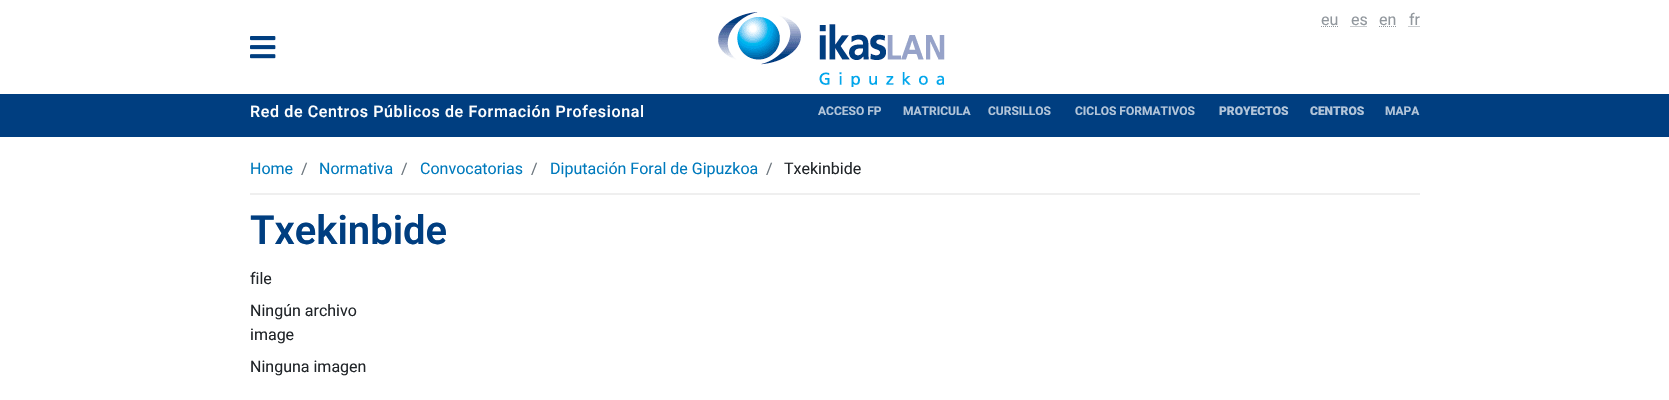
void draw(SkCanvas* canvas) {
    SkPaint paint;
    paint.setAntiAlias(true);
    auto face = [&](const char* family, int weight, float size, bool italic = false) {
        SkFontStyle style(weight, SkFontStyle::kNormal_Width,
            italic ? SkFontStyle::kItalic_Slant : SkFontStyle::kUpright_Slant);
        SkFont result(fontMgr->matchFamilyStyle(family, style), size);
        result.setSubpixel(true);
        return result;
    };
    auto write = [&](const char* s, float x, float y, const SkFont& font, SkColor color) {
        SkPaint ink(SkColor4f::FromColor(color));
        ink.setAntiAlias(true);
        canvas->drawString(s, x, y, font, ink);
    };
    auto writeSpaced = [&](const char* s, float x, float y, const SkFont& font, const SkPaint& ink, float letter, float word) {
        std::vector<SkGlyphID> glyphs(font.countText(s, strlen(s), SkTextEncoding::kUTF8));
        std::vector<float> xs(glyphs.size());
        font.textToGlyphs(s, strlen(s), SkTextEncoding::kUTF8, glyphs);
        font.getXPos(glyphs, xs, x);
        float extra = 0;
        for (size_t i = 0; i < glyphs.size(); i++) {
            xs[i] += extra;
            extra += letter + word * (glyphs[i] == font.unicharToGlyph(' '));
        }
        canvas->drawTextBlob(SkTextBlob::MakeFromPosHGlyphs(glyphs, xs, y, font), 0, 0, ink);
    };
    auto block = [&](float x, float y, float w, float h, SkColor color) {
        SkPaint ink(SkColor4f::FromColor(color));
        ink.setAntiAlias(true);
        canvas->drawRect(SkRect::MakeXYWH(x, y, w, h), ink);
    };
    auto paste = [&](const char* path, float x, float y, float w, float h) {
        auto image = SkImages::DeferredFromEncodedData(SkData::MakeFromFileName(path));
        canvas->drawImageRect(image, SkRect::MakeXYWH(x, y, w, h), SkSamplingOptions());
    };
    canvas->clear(SK_ColorWHITE);
    paste("pic1.png", 718, 12, 227, 75);
    auto kFont1 = face("Roboto", 400, 16);
    write("eu", 1321, 25, kFont1, SkColorSetRGB(145, 151, 157));
    paint.setStyle(SkPaint::kStroke_Style);
    paint.setStrokeWidth(1);
    paint.setColor(SkColorSetRGB(145, 151, 157));
    paint.setPathEffect(SkDashPathEffect::Make({{1, 1}}, 0));
    canvas->drawPath(SkPathBuilder().moveTo(1321, 26.5f).lineTo(1338.5f, 26.5f).detach(), paint);
    paint.setPathEffect(nullptr);
    write("es", 1351, 25, kFont1, SkColorSetRGB(145, 151, 157));
    paint.setPathEffect(SkDashPathEffect::Make({{1, 1}}, 0));
    canvas->drawPath(SkPathBuilder().moveTo(1350.5f, 26.5f).lineTo(1367, 26.5f).detach(), paint);
    paint.setPathEffect(nullptr);
    write("en", 1379, 25, kFont1, SkColorSetRGB(145, 151, 157));
    paint.setPathEffect(SkDashPathEffect::Make({{1, 1}}, 0));
    canvas->drawPath(SkPathBuilder().moveTo(1379, 26.5f).lineTo(1396.5f, 26.5f).detach(), paint);
    paint.setPathEffect(nullptr);
    write("fr", 1409, 25, kFont1, SkColorSetRGB(145, 151, 157));
    paint.setPathEffect(SkDashPathEffect::Make({{1, 1}}, 0));
    canvas->drawPath(SkPathBuilder().moveTo(1408.5f, 26.5f).lineTo(1419.5f, 26.5f).detach(), paint);
    paint.setPathEffect(nullptr);
    paste("pic2.png", 250, 36, 26, 23);
    block(0, 94, 1669, 43, SkColorSetRGB(0, 62, 128));
    auto kFont2 = face("Roboto", 500, 16);
    paint.setStyle(SkPaint::kFill_Style);
    paint.setColor(SK_ColorWHITE);
    writeSpaced("Red de Centros Públicos de Formación Profesional", 250, 117, kFont2, paint, 0.65f, 0);
    auto kFont3 = face("Roboto", 700, 12);
    write("ACCESO FP", 818, 115, kFont3, SkColorSetRGB(179, 197, 217));
    write("MATRICULA", 903, 115, kFont3, SkColorSetRGB(179, 197, 217));
    write("CURSILLOS", 988, 115, kFont3, SkColorSetRGB(179, 197, 217));
    write("CICLOS FORMATIVOS", 1075, 115, kFont3, SkColorSetRGB(179, 197, 217));
    auto kFont4 = face("Roboto", 900, 12);
    write("PROYECTOS", 1219, 115, kFont4, SkColorSetRGB(179, 197, 217));
    write("CENTROS", 1310, 115, kFont4, SkColorSetRGB(179, 197, 217));
    write("MAPA", 1385, 115, kFont3, SkColorSetRGB(179, 197, 217));
    block(250, 193, 1170, 2, SkColorSetRGB(239, 239, 239));
    write("Home", 250, 174, kFont1, SkColorSetRGB(0, 122, 189));
    write("/", 301, 174, kFont1, SkColorSetRGB(108, 117, 125));
    write("Normativa", 319, 174, kFont1, SkColorSetRGB(0, 122, 189));
    write("/", 401, 174, kFont1, SkColorSetRGB(108, 117, 125));
    write("Convocatorias", 420, 174, kFont1, SkColorSetRGB(0, 122, 189));
    write("/", 531, 174, kFont1, SkColorSetRGB(108, 117, 125));
    write("Diputación Foral de Gipuzkoa", 550, 174, kFont1, SkColorSetRGB(0, 122, 189));
    write("/", 766, 174, kFont1, SkColorSetRGB(108, 117, 125));
    write("Txekinbide", 784, 174, kFont1, SkColorSetRGB(33, 37, 41));
    auto kFont5 = face("Roboto", 600, 40);
    write("Txekinbide", 250, 244, kFont5, SkColorSetRGB(0, 62, 128));
    write("file", 250, 284, kFont1, SkColorSetRGB(33, 37, 41));
    write("Ningún archivo", 250, 316, kFont1, SkColorSetRGB(33, 37, 41));
    write("image", 250, 340, kFont1, SkColorSetRGB(33, 37, 41));
    write("Ninguna imagen", 250, 372, kFont1, SkColorSetRGB(33, 37, 41));
}
